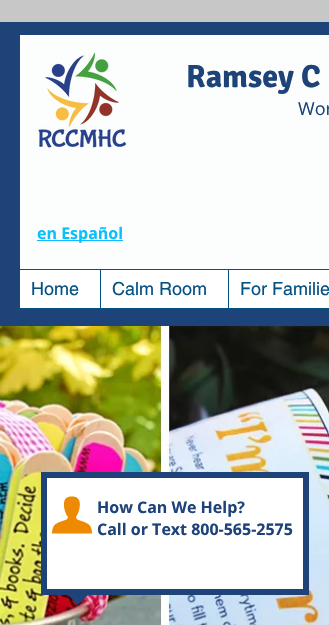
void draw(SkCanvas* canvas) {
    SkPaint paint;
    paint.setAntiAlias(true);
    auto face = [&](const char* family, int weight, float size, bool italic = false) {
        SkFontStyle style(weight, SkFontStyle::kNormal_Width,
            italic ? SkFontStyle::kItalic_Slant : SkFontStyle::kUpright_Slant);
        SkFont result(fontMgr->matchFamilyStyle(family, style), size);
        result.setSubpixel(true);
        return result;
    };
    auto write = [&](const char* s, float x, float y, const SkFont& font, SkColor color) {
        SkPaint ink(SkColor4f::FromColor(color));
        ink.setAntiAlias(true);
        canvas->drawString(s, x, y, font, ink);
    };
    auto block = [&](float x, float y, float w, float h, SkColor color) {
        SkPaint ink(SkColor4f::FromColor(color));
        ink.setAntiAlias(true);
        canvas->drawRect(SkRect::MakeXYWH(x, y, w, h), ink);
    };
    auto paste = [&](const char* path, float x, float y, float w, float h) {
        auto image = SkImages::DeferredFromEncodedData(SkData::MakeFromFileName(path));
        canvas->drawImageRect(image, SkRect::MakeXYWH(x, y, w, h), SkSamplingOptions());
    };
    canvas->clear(SkColorSetRGB(199, 199, 199));
    block(0, 22, 329, 304, SkColorSetRGB(29, 67, 121));
    block(20, 35, 309, 234, SkColorSetRGB(252, 254, 253));
    paste("pic1.png", 38, 52, 89, 96);
    auto kFont1 = face("Signika", 700, 32);
    write("Ramsey C", 186, 87, kFont1, SkColorSetRGB(29, 67, 121));
    auto kFont2 = face("Open Sans", 400, 18);
    write("Wor", 298, 115, kFont2, SkColorSetRGB(29, 67, 121));
    block(37, 240, 86, 1, SkColorSetRGB(10, 190, 255));
    auto kFont3 = face("Open Sans", 700, 16);
    write("en Español", 37, 239, kFont3, SkColorSetRGB(10, 190, 255));
    paint.setColor(SK_ColorWHITE);
    canvas->drawRect(SkRect::MakeXYWH(19.5f, 269.5f, 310, 39), paint);
    paint.setStyle(SkPaint::kStroke_Style);
    paint.setStrokeWidth(1);
    paint.setColor(SkColorSetRGB(4, 81, 132));
    canvas->drawRect(SkRect::MakeXYWH(19.5f, 269.5f, 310, 39), paint);
    auto kFont4 = face("helvetica", 400, 18);
    write("Home", 31, 295, kFont4, SkColorSetRGB(4, 81, 132));
    block(100, 270, 1, 38, SkColorSetRGB(4, 81, 132));
    write("Calm Room", 112, 295, kFont4, SkColorSetRGB(4, 81, 132));
    block(228, 270, 1, 38, SkColorSetRGB(4, 81, 132));
    write("For Familie", 240, 295, kFont4, SkColorSetRGB(4, 81, 132));
    paste("pic2.png", 0, 326, 329, 299);
    paint.setStyle(SkPaint::kFill_Style);
    paint.setColor(SK_ColorWHITE);
    canvas->drawRect(SkRect::MakeXYWH(44, 475, 262, 117), paint);
    paint.setStyle(SkPaint::kStroke_Style);
    paint.setStrokeWidth(6);
    paint.setColor(SkColorSetRGB(29, 67, 121));
    canvas->drawRect(SkRect::MakeXYWH(44, 475, 262, 117), paint);
    paste("pic3.png", 52, 496, 40, 38);
    write("How Can We Help?", 97, 513, kFont3, SkColorSetRGB(29, 67, 121));
    write("Call or Text 800-565-2575", 97, 535, kFont3, SkColorSetRGB(29, 67, 121));
    paint.setStyle(SkPaint::kFill_Style);
    canvas->drawPath(SkPathBuilder().moveTo(68, 595).lineTo(88, 595).lineTo(78, 605).close().detach(), paint);
}
